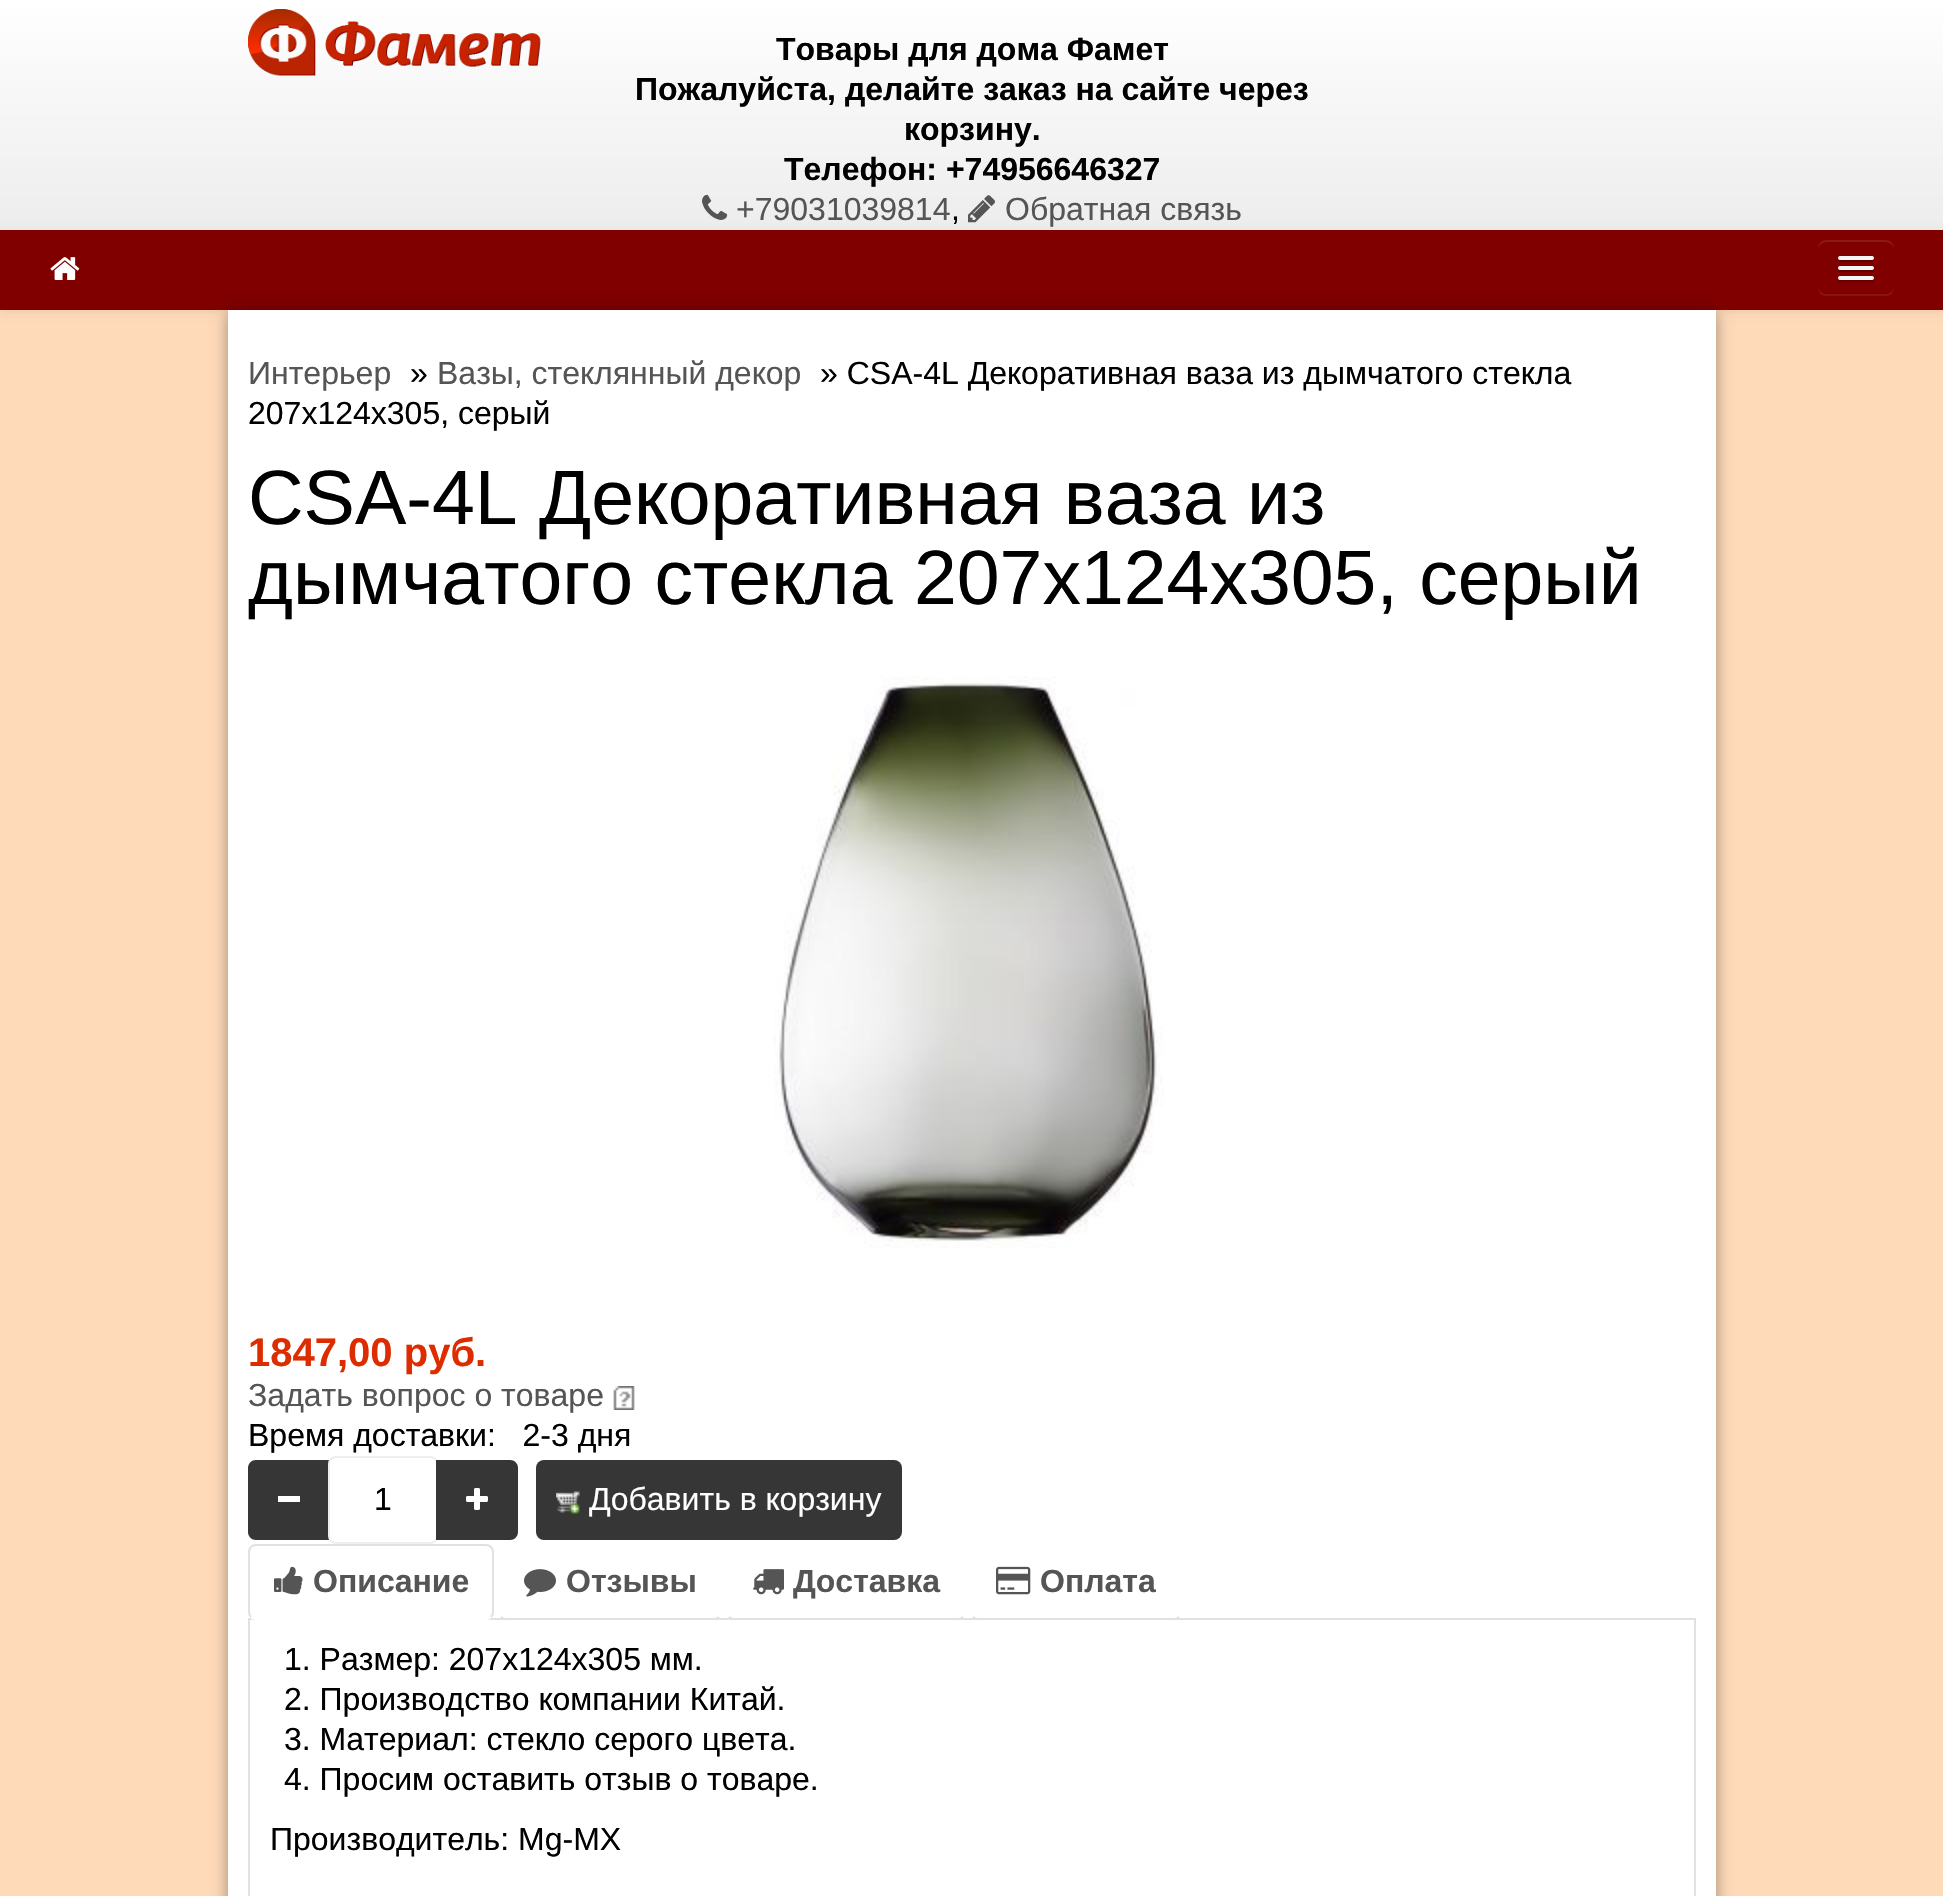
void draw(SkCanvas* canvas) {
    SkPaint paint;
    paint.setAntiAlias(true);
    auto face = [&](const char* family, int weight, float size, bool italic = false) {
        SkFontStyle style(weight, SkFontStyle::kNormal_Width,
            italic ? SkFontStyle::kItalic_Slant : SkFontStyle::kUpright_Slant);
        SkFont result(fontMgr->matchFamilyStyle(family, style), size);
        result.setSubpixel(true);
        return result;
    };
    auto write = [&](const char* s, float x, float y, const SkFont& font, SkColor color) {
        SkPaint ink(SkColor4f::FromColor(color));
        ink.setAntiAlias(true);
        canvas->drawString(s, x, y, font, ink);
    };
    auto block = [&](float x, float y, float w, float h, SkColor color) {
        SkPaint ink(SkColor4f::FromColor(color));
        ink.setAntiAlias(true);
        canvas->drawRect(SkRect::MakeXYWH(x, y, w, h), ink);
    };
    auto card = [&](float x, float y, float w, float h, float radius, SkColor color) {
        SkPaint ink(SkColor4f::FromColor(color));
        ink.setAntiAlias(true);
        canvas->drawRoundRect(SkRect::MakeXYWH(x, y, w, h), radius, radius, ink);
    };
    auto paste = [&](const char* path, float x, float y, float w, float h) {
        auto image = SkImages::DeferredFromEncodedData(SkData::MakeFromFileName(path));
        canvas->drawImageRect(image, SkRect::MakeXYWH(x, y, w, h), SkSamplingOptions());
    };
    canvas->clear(SkColorSetRGB(255, 218, 185));
    {
        const SkColor colors[] = {SK_ColorWHITE, SkColorSetRGB(246, 246, 246), SkColorSetRGB(237, 237, 237)};
        const float stops[] = {0, 0.47f, 1};
        const SkPoint ends[] = {{972, 0}, {972, 230}};
        paint.setShader(SkGradientShader::MakeLinear(ends, colors, stops, 3, SkTileMode::kClamp));
        paint.setAlpha(255);
    }
    canvas->drawRect(SkRect::MakeXYWH(0, 0, 1943, 230), paint);
    paste("pic1.png", 248, 9, 293, 67);
    auto kFont1 = face("Liberation Sans", 700, 32);
    write("Товары для дома Фамет", 776, 60, kFont1, SK_ColorBLACK);
    write("Пожалуйста, делайте заказ на сайте через", 635, 100, kFont1, SK_ColorBLACK);
    write("корзину.", 904, 140, kFont1, SK_ColorBLACK);
    write("Телефон: +74956646327", 784, 180, kFont1, SK_ColorBLACK);
    paint.setShader(nullptr);
    paint.setColor(SkColorSetARGB(18, 0, 0, 0));
    paint.setMaskFilter(SkMaskFilter::MakeBlur(kNormal_SkBlurStyle, 4));
    canvas->drawRect(SkRect::MakeXYWH(0, 232, 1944, 80), paint);
    paint.setMaskFilter(nullptr);
    paste("pic2.png", 702, 194, 26, 26);
    auto kFont2 = face("Liberation Sans", 400, 32);
    write("+79031039814", 736, 220, kFont2, SkColorSetRGB(85, 85, 85));
    write(",", 951, 220, kFont2, SK_ColorBLACK);
    paste("pic3.png", 968, 195, 27, 28);
    write("Обратная связь", 1005, 220, kFont2, SkColorSetRGB(85, 85, 85));
    block(0, 230, 1943, 80, SkColorSetRGB(128, 0, 0));
    paste("pic4.png", 50, 257, 30, 23);
    paint.setColor(SkColorSetRGB(138, 19, 19));
    canvas->drawPath(SkPathBuilder().moveTo(1818, 286).cubicTo(1818, 298, 1827, 296, 1836, 296).lineTo(1876, 296).cubicTo(1885, 296, 1894, 298, 1894, 286).cubicTo(1894, 290, 1890, 294, 1886, 294).lineTo(1826, 294).cubicTo(1822, 294, 1818, 290, 1818, 286).close().detach(), paint);
    paint.setColor(SkColorSetRGB(141, 26, 26));
    canvas->drawPath(SkPathBuilder().moveTo(1826, 242).lineTo(1886, 242).cubicTo(1890, 242, 1894, 246, 1894, 250).cubicTo(1894, 238, 1885, 240, 1876, 240).lineTo(1836, 240).cubicTo(1827, 240, 1818, 238, 1818, 250).cubicTo(1818, 246, 1822, 242, 1826, 242).close().detach(), paint);
    paint.setColor(SkColorSetRGB(96, 0, 0));
    canvas->drawPath(SkPathBuilder().moveTo(1838.5f, 259).cubicTo(1836, 263, 1845, 262, 1845.5f, 262).lineTo(1866.5f, 262).cubicTo(1867, 262, 1876, 263, 1873.5f, 259).cubicTo(1873.5f, 259.5f, 1872.5f, 260, 1872, 260).lineTo(1840, 260).cubicTo(1839.5f, 260, 1838.5f, 259.5f, 1838.5f, 259).close().detach(), paint);
    card(1838, 256, 36, 4, 2, SkColorSetRGB(245, 245, 245));
    canvas->drawPath(SkPathBuilder().moveTo(1838.5f, 269).cubicTo(1836, 273, 1845, 272, 1845.5f, 272).lineTo(1866.5f, 272).cubicTo(1867, 272, 1876, 273, 1873.5f, 269).cubicTo(1873.5f, 269.5f, 1872.5f, 270, 1872, 270).lineTo(1840, 270).cubicTo(1839.5f, 270, 1838.5f, 269.5f, 1838.5f, 269).close().detach(), paint);
    card(1838, 266, 36, 4, 2, SkColorSetRGB(245, 245, 245));
    canvas->drawPath(SkPathBuilder().moveTo(1838.5f, 279).cubicTo(1836, 283, 1845, 282, 1845.5f, 282).lineTo(1866.5f, 282).cubicTo(1867, 282, 1876, 283, 1873.5f, 279).cubicTo(1873.5f, 279.5f, 1872.5f, 280, 1872, 280).lineTo(1840, 280).cubicTo(1839.5f, 280, 1838.5f, 279.5f, 1838.5f, 279).close().detach(), paint);
    card(1838, 276, 36, 4, 2, SkColorSetRGB(245, 245, 245));
    paint.setColor(SkColorSetARGB(41, 0, 0, 0));
    paint.setMaskFilter(SkMaskFilter::MakeBlur(kNormal_SkBlurStyle, 8));
    canvas->drawRoundRect(SkRect::MakeXYWH(228, 312, 1488, 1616), 8, 8, paint);
    paint.setMaskFilter(nullptr);
    paint.setColor(SkColorSetARGB(59, 0, 0, 0));
    paint.setMaskFilter(SkMaskFilter::MakeBlur(kNormal_SkBlurStyle, 8));
    canvas->drawRoundRect(SkRect::MakeXYWH(228, 312, 1488, 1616), 8, 8, paint);
    paint.setMaskFilter(nullptr);
    block(228, 310, 1488, 1586, SK_ColorWHITE);
    write("Интерьер", 248, 384, kFont2, SkColorSetRGB(85, 85, 85));
    write("»", 410, 384, kFont2, SK_ColorBLACK);
    write("Вазы, стеклянный декор", 437, 384, kFont2, SkColorSetRGB(85, 85, 85));
    write("» CSA-4L Декоративная ваза из дымчатого стекла", 820, 384, kFont2, SK_ColorBLACK);
    write("207х124х305, серый", 248, 424, kFont2, SK_ColorBLACK);
    auto kFont3 = face("Liberation Sans", 400, 77);
    write("CSA-4L Декоративная ваза из", 248, 524, kFont3, SK_ColorBLACK);
    write("дымчатого стекла 207х124х305, серый", 248, 604, kFont3, SK_ColorBLACK);
    paste("pic5.png", 774, 676, 390, 572);
    auto kFont4 = face("Liberation Sans", 700, 40);
    write("1847,00 руб.", 248, 1366, kFont4, SkColorSetRGB(221, 44, 0));
    write("Задать вопрос о товаре", 248, 1406, kFont2, SkColorSetRGB(85, 85, 85));
    paste("pic6.png", 613, 1386, 22, 24);
    write("Время доставки:   2-3 дня", 248, 1446, kFont2, SK_ColorBLACK);
    paint.setColor(SkColorSetRGB(54, 54, 54));
    canvas->drawPath(SkPathBuilder().moveTo(256, 1460).lineTo(330, 1460).lineTo(330, 1540).lineTo(256, 1540).cubicTo(251.5f, 1540, 248, 1536.5f, 248, 1532).lineTo(248, 1468).cubicTo(248, 1463.5f, 251.5f, 1460, 256, 1460).close().detach(), paint);
    block(278, 1496, 22, 6, SK_ColorWHITE);
    paint.setColor(SK_ColorWHITE);
    canvas->drawRoundRect(SkRect::MakeXYWH(329, 1457, 108, 86), 7, 7, paint);
    paint.setStyle(SkPaint::kStroke_Style);
    paint.setStrokeWidth(2);
    paint.setColor(SkColorSetRGB(238, 238, 238));
    canvas->drawRoundRect(SkRect::MakeXYWH(329, 1457, 108, 86), 7, 7, paint);
    write("1", 374, 1510, kFont2, SK_ColorBLACK);
    paint.setStyle(SkPaint::kFill_Style);
    paint.setColor(SkColorSetRGB(54, 54, 54));
    canvas->drawPath(SkPathBuilder().moveTo(436, 1460).lineTo(510, 1460).cubicTo(514.5f, 1460, 518, 1463.5f, 518, 1468).lineTo(518, 1532).cubicTo(518, 1536.5f, 514.5f, 1540, 510, 1540).lineTo(436, 1540).close().detach(), paint);
    paste("pic7.png", 466, 1488, 22, 22);
    card(536, 1460, 366, 80, 8, SkColorSetRGB(54, 54, 54));
    paste("pic8.png", 556, 1491, 24, 23);
    write("Добавить в корзину", 589, 1510, kFont2, SK_ColorWHITE);
    block(248, 1618, 1448, 2, SkColorSetRGB(225, 225, 225));
    paint.setStyle(SkPaint::kStroke_Style);
    paint.setColor(SK_ColorWHITE);
    canvas->drawPath(SkPathBuilder().moveTo(491, 1617).cubicTo(489.5f, 1618.5f, 488, 1619, 486, 1619).lineTo(256, 1619).cubicTo(254, 1619, 252.5f, 1618.5f, 251, 1617).detach(), paint);
    paint.setColor(SkColorSetRGB(225, 225, 225));
    canvas->drawPath(SkPathBuilder().moveTo(251, 1617).cubicTo(249.5f, 1615.5f, 249, 1614, 249, 1612).lineTo(249, 1552).cubicTo(249, 1550, 249.5f, 1548.5f, 251, 1547).cubicTo(252.5f, 1545.5f, 254, 1545, 256, 1545).lineTo(486, 1545).cubicTo(488, 1545, 489.5f, 1545.5f, 491, 1547).cubicTo(492.5f, 1548.5f, 493, 1550, 493, 1552).lineTo(493, 1612).cubicTo(493, 1614, 492.5f, 1615.5f, 491, 1617).detach(), paint);
    paste("pic9.png", 274, 1566, 29, 29);
    write("Описание", 313, 1592, kFont1, SkColorSetRGB(85, 85, 85));
    canvas->drawPath(SkPathBuilder().moveTo(719, 1617).cubicTo(717.5f, 1618.5f, 716, 1619, 714, 1619).lineTo(506, 1619).cubicTo(504, 1619, 502.5f, 1618.5f, 501, 1617).detach(), paint);
    paste("pic10.png", 524, 1569, 32, 28);
    write("Отзывы", 566, 1592, kFont1, SkColorSetRGB(85, 85, 85));
    canvas->drawPath(SkPathBuilder().moveTo(963, 1617).cubicTo(961.5f, 1618.5f, 960, 1619, 958, 1619).lineTo(734, 1619).cubicTo(732, 1619, 730.5f, 1618.5f, 729, 1617).detach(), paint);
    paste("pic11.png", 753, 1569, 31, 26);
    write("Доставка", 793, 1592, kFont1, SkColorSetRGB(85, 85, 85));
    canvas->drawPath(SkPathBuilder().moveTo(1179, 1617).cubicTo(1177.5f, 1618.5f, 1176, 1619, 1174, 1619).lineTo(978, 1619).cubicTo(976, 1619, 974.5f, 1618.5f, 973, 1617).detach(), paint);
    paste("pic12.png", 996, 1566, 35, 29);
    write("Оплата", 1040, 1592, kFont1, SkColorSetRGB(85, 85, 85));
    block(1694, 1620, 2, 276, SkColorSetRGB(225, 225, 225));
    block(248, 1620, 2, 276, SkColorSetRGB(225, 225, 225));
    write("1. Размер: 207х124х305 мм.", 284, 1670, kFont2, SK_ColorBLACK);
    write("2. Производство компании Китай.", 284, 1710, kFont2, SK_ColorBLACK);
    write("3. Материал: стекло серого цвета.", 284, 1750, kFont2, SK_ColorBLACK);
    write("4. Просим оставить отзыв о товаре.", 284, 1790, kFont2, SK_ColorBLACK);
    write("Производитель: Mg-MX", 270, 1850, kFont2, SK_ColorBLACK);
}
